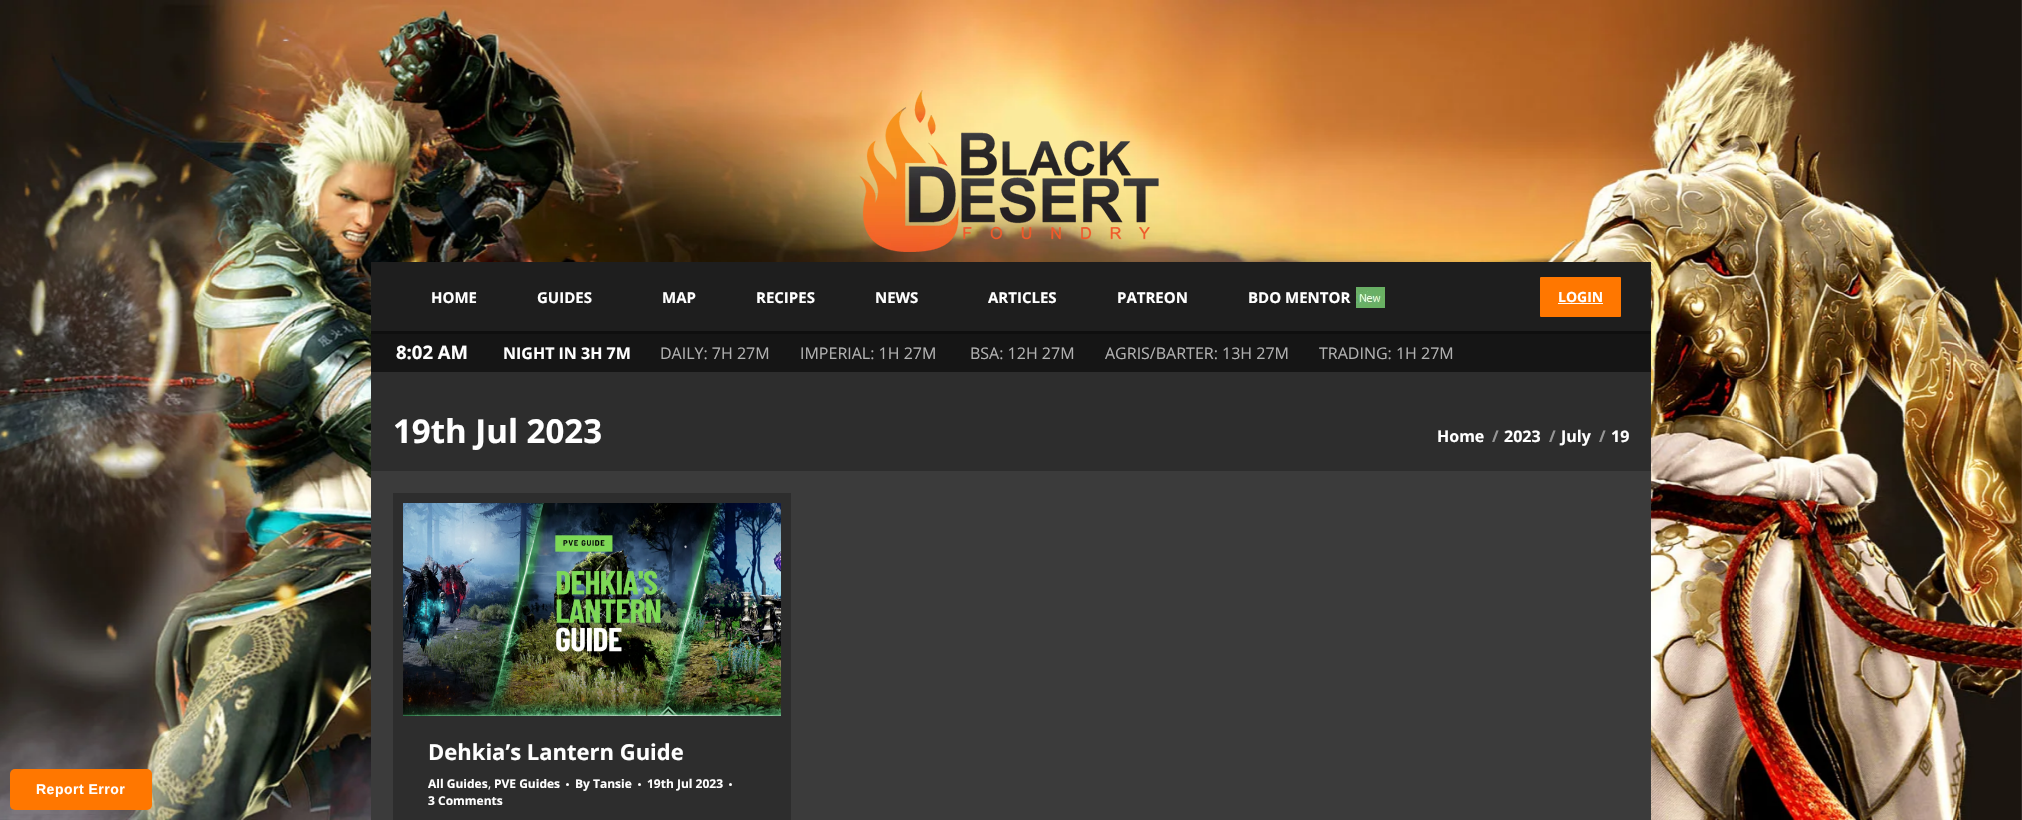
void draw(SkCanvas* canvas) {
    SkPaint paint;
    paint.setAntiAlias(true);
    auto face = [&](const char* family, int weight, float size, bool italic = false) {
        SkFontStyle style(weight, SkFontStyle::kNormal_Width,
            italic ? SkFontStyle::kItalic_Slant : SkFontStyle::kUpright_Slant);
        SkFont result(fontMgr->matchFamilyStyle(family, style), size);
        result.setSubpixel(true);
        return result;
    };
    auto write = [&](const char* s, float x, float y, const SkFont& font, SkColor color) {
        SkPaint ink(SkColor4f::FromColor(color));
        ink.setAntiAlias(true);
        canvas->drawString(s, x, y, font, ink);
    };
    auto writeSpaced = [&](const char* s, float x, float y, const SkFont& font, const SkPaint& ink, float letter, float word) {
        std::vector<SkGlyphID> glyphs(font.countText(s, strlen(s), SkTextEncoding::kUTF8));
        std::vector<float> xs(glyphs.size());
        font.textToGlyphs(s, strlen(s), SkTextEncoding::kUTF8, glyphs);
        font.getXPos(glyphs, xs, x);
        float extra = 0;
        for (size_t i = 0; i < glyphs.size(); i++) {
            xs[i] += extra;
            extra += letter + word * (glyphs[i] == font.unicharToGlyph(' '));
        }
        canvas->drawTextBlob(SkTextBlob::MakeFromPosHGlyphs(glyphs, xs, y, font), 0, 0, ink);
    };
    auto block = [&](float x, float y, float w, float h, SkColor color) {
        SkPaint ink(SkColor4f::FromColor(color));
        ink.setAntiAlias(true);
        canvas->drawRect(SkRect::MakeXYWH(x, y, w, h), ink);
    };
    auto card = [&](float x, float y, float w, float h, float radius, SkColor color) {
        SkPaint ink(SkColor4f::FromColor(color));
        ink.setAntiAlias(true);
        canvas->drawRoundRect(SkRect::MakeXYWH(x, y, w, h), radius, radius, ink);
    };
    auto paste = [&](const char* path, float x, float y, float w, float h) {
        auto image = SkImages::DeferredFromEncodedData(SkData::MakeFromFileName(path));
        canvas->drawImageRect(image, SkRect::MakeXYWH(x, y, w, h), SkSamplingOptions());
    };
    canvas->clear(SK_ColorWHITE);
    paste("pic1.png", 0, 0, 2022, 820);
    card(10, 769, 142, 41, 5, SkColorSetRGB(255, 119, 0));
    auto kFont1 = face("Liberation Sans", 700, 14);
    paint.setColor(SK_ColorWHITE);
    writeSpaced("Report Error", 36, 794, kFont1, paint, 0.5f, 0);
    paste("pic2.png", 859, 90, 300, 162);
    block(371, 262, 1280, 69, SkColorSetRGB(30, 30, 30));
    block(371, 331, 1280, 3, SkColorSetRGB(15, 15, 15));
    auto kFont2 = face("Open Sans", 700, 15);
    write("HOME", 431, 303, kFont2, SK_ColorWHITE);
    write("GUIDES", 537, 303, kFont2, SK_ColorWHITE);
    write("MAP", 662, 303, kFont2, SK_ColorWHITE);
    write("RECIPES", 756, 303, kFont2, SK_ColorWHITE);
    write("NEWS", 875, 303, kFont2, SK_ColorWHITE);
    write("ARTICLES", 988, 303, kFont2, SK_ColorWHITE);
    write("PATREON", 1117, 303, kFont2, SK_ColorWHITE);
    write("BDO MENTOR", 1248, 303, kFont2, SK_ColorWHITE);
    paste("pic3.png", 1356, 287, 29, 21);
    card(1540, 277, 81, 40, 1, SkColorSetRGB(255, 119, 0));
    auto kFont3 = face("Open Sans", 700, 14);
    write("LOGIN", 1558, 302, kFont3, SK_ColorWHITE);
    block(1558, 303, 45, 1, SK_ColorWHITE);
    block(371, 334, 1280, 38, SkColorSetRGB(21, 21, 21));
    auto kFont4 = face("Open Sans", 700, 18.5f);
    write("8:02 AM", 396, 359, kFont4, SK_ColorWHITE);
    auto kFont5 = face("Open Sans", 700, 16);
    write("NIGHT IN 3H 7M", 503, 359, kFont5, SK_ColorWHITE);
    auto kFont6 = face("Open Sans", 400, 16);
    write("DAILY: 7H 27M", 660, 359, kFont6, SkColorSetRGB(176, 176, 176));
    write("IMPERIAL: 1H 27M", 800, 359, kFont6, SkColorSetRGB(176, 176, 176));
    write("BSA: 12H 27M", 970, 359, kFont6, SkColorSetRGB(176, 176, 176));
    write("AGRIS/BARTER: 13H 27M", 1105, 359, kFont6, SkColorSetRGB(176, 176, 176));
    write("TRADING: 1H 27M", 1319, 359, kFont6, SkColorSetRGB(176, 176, 176));
    block(371, 372, 1280, 99, SkColorSetRGB(45, 45, 45));
    auto kFont7 = face("Open Sans", 700, 33);
    write("19th Jul 2023", 393, 443, kFont7, SK_ColorWHITE);
    write("Home", 1437, 442, kFont5, SK_ColorWHITE);
    write("/", 1492, 442, kFont5, SkColorSetRGB(150, 150, 150));
    write("2023", 1504, 442, kFont5, SK_ColorWHITE);
    write("/", 1549, 442, kFont5, SkColorSetRGB(150, 150, 150));
    write("July", 1561, 442, kFont5, SK_ColorWHITE);
    write("/", 1599, 442, kFont5, SkColorSetRGB(150, 150, 150));
    write("19", 1611, 442, kFont5, SK_ColorWHITE);
    block(371, 471, 1280, 349, SkColorSetRGB(59, 59, 59));
    block(393, 493, 398, 327, SkColorSetRGB(45, 45, 45));
    paste("pic4.png", 403, 503, 378, 213);
    auto kFont8 = face("Open Sans", 700, 22);
    write("Dehkia’s Lantern Guide", 428, 760, kFont8, SK_ColorWHITE);
    auto kFont9 = face("Open Sans", 700, 12);
    write("All Guides", 428, 788, kFont9, SK_ColorWHITE);
    write("PVE Guides", 494, 788, kFont9, SK_ColorWHITE);
    canvas->drawCircle(567.5f, 784.5f, 1.5f, paint);
    auto kFont10 = face("Open Sans", 400, 12);
    write(",", 488, 788, kFont10, SK_ColorWHITE);
    write("By Tansie", 575, 788, kFont9, SK_ColorWHITE);
    canvas->drawCircle(639.5f, 784.5f, 1.5f, paint);
    write("19th Jul 2023", 647, 788, kFont9, SK_ColorWHITE);
    canvas->drawCircle(730.5f, 784.5f, 1.5f, paint);
    write("3 Comments", 428, 805, kFont9, SK_ColorWHITE);
}
